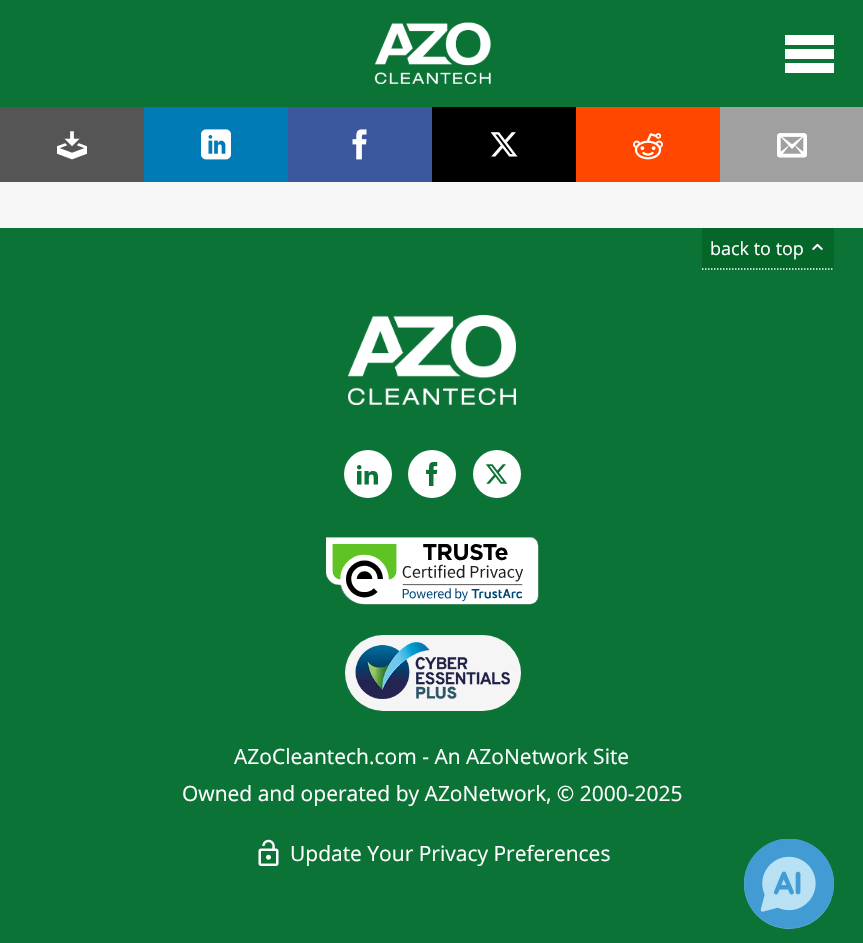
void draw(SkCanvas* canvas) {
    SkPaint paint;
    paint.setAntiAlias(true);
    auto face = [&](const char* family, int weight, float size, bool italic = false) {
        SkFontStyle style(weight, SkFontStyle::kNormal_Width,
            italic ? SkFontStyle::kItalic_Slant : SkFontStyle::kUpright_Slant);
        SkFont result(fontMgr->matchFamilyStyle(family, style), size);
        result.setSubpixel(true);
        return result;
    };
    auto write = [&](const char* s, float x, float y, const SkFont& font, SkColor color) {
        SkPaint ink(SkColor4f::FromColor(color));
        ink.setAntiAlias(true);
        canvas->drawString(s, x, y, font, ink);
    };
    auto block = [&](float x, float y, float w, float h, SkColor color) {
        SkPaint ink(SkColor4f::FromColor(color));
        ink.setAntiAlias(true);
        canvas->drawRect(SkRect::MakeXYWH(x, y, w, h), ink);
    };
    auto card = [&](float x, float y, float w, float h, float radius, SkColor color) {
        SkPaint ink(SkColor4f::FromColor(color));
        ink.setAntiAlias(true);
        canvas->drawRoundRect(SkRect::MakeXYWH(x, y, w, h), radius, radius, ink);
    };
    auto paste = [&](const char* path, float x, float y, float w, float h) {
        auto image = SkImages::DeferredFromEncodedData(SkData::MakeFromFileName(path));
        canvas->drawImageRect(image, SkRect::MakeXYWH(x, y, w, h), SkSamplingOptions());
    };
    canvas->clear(SkColorSetRGB(247, 247, 247));
    block(0, 0, 863, 107, SkColorSetRGB(12, 115, 54));
    paste("pic1.png", 374, 22, 117, 62);
    paint.setColor(SK_ColorWHITE);
    canvas->drawPath(SkPathBuilder().moveTo(785, 35).lineTo(834, 35).lineTo(834, 45).lineTo(785, 45).close().moveTo(785, 49).lineTo(834, 49).lineTo(834, 59).lineTo(785, 59).close().moveTo(785, 63).lineTo(834, 63).lineTo(834, 73).lineTo(785, 73).close().detach(), paint);
    block(0, 107, 144, 75, SkColorSetRGB(85, 85, 85));
    paste("pic2.png", 57, 131, 30, 29);
    block(144, 107, 144, 75, SkColorSetRGB(0, 123, 182));
    paste("pic3.png", 201, 129, 30, 31);
    block(288, 107, 144, 75, SkColorSetRGB(59, 87, 157));
    paste("pic4.png", 352, 129, 15, 31);
    block(432, 107, 144, 75, SK_ColorBLACK);
    paste("pic5.png", 490, 132, 28, 25);
    block(576, 107, 144, 75, SkColorSetRGB(255, 71, 0));
    paste("pic6.png", 633, 133, 30, 27);
    block(720, 107, 143, 75, SkColorSetRGB(160, 160, 160));
    paste("pic7.png", 777, 133, 30, 25);
    block(0, 228, 863, 715, SkColorSetRGB(12, 115, 54));
    paint.setColor(SkColorSetRGB(127, 179, 219));
    canvas->drawCircle(789, 884, 45, paint);
    paste("pic8.png", 744, 839, 90, 90);
    block(702, 228, 132, 42, SkColorSetRGB(5, 102, 41));
    paint.setStyle(SkPaint::kStroke_Style);
    paint.setStrokeWidth(1.5f);
    paint.setColor(SK_ColorWHITE);
    paint.setPathEffect(SkDashPathEffect::Make({{1.5f, 1.5f}}, 0));
    canvas->drawPath(SkPathBuilder().moveTo(702, 269).lineTo(834, 269).detach(), paint);
    paint.setPathEffect(nullptr);
    auto kFont1 = face("Open Sans", 400, 18);
    write("back to top", 710, 255, kFont1, SK_ColorWHITE);
    paste("pic9.png", 812, 243, 11, 7);
    paste("pic10.png", 348, 315, 168, 90);
    paint.setStyle(SkPaint::kFill_Style);
    canvas->drawCircle(368, 474, 24, paint);
    paste("pic11.png", 357, 465, 21, 20);
    canvas->drawCircle(432, 474, 24, paint);
    paste("pic12.png", 426, 462, 12, 24);
    canvas->drawCircle(497, 474, 24, paint);
    paste("pic13.png", 485, 464, 23, 20);
    paste("pic14.png", 326, 537, 213, 68);
    card(345, 635, 176, 76, 38, SkColorSetRGB(245, 245, 245));
    paste("pic15.png", 355, 642, 155, 57);
    auto kFont2 = face("Open Sans", 400, 21);
    write("AZoCleantech.com - An AZoNetwork Site", 234, 764, kFont2, SK_ColorWHITE);
    write("Owned and operated by AZoNetwork, © 2000-2025", 182, 801, kFont2, SK_ColorWHITE);
    paste("pic16.png", 258, 839, 21, 27);
    write("Update Your Privacy Preferences", 290, 861, kFont2, SK_ColorWHITE);
}
